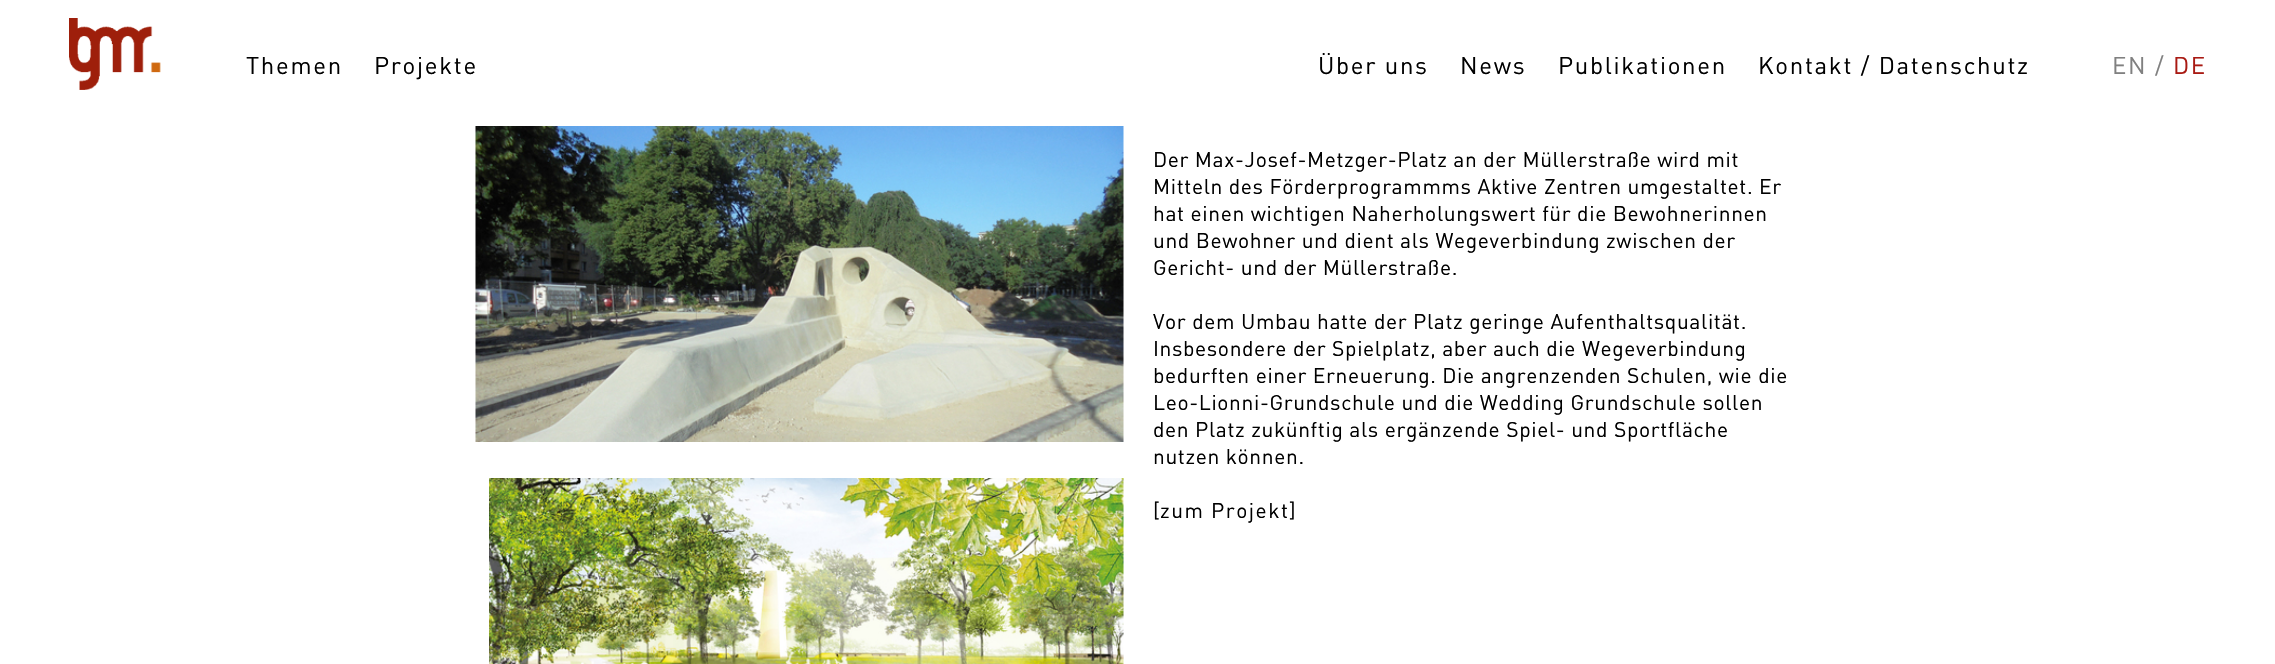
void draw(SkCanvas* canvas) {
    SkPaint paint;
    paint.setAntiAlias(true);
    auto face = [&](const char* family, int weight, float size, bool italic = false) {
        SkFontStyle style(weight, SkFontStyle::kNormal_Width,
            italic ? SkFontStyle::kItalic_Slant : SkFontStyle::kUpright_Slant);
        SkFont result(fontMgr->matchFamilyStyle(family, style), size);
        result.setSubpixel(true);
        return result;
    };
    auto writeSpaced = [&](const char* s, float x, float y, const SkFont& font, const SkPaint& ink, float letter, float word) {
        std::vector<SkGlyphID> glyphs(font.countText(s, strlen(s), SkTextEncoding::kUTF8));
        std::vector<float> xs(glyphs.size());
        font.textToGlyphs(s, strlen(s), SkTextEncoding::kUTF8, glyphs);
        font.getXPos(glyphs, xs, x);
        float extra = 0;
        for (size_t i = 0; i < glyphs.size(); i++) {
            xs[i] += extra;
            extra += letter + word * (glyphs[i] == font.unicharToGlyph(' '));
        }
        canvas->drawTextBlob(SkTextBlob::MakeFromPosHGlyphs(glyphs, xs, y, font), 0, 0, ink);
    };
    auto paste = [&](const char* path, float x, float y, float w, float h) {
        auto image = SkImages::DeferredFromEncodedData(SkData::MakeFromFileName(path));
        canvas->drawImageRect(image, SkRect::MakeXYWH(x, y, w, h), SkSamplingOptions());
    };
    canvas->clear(SK_ColorWHITE);
    paste("pic1.png", 69, 18, 92, 72);
    auto kFont1 = face("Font", 400, 24);
    paint.setColor(SK_ColorBLACK);
    writeSpaced("Themen", 246, 74, kFont1, paint, 1.7f, 0);
    writeSpaced("Projekte", 374, 74, kFont1, paint, 1.7f, 0);
    writeSpaced("Über uns", 1318, 74, kFont1, paint, 1.7f, 0);
    writeSpaced("News", 1460, 74, kFont1, paint, 1.7f, 0);
    writeSpaced("Publikationen", 1558, 74, kFont1, paint, 1.7f, 0);
    writeSpaced("Kontakt / Datenschutz", 1758, 74, kFont1, paint, 1.7f, 0);
    paint.setColor(SkColorSetRGB(128, 128, 128));
    writeSpaced("EN /", 2112, 74, kFont1, paint, 1.7f, 0);
    paint.setColor(SkColorSetRGB(169, 26, 19));
    writeSpaced("DE", 2173, 74, kFont1, paint, 1.7f, 0);
    paste("pic2.png", 475, 126, 649, 316);
    paste("pic3.png", 489, 478, 635, 186);
    auto kFont2 = face("Font", 400, 21);
    paint.setColor(SK_ColorBLACK);
    writeSpaced("Der Max-Josef-Metzger-Platz an der Müllerstraße wird mit", 1153, 167, kFont2, paint, 0.63f, 0);
    writeSpaced("Mitteln des Förderprogrammms Aktive Zentren umgestaltet. Er", 1153, 194, kFont2, paint, 0.63f, 0);
    writeSpaced("hat einen wichtigen Naherholungswert für die Bewohnerinnen", 1153, 221, kFont2, paint, 0.63f, 0);
    writeSpaced("und Bewohner und dient als Wegeverbindung zwischen der", 1153, 248, kFont2, paint, 0.63f, 0);
    writeSpaced("Gericht- und der Müllerstraße.", 1153, 275, kFont2, paint, 0.63f, 0);
    writeSpaced("Vor dem Umbau hatte der Platz geringe Aufenthaltsqualität.", 1153, 329, kFont2, paint, 0.63f, 0);
    writeSpaced("Insbesondere der Spielplatz, aber auch die Wegeverbindung", 1153, 356, kFont2, paint, 0.63f, 0);
    writeSpaced("bedurften einer Erneuerung. Die angrenzenden Schulen, wie die", 1153, 383, kFont2, paint, 0.63f, 0);
    writeSpaced("Leo-Lionni-Grundschule und die Wedding Grundschule sollen", 1153, 410, kFont2, paint, 0.63f, 0);
    writeSpaced("den Platz zukünftig als ergänzende Spiel- und Sportfläche", 1153, 437, kFont2, paint, 0.63f, 0);
    writeSpaced("nutzen können.", 1153, 464, kFont2, paint, 0.63f, 0);
    writeSpaced("[", 1153, 518, kFont2, paint, 0.63f, 0);
    writeSpaced("zum Projekt", 1160, 518, kFont2, paint, 1.5f, 0);
    writeSpaced("]", 1289, 518, kFont2, paint, 0.63f, 0);
}
